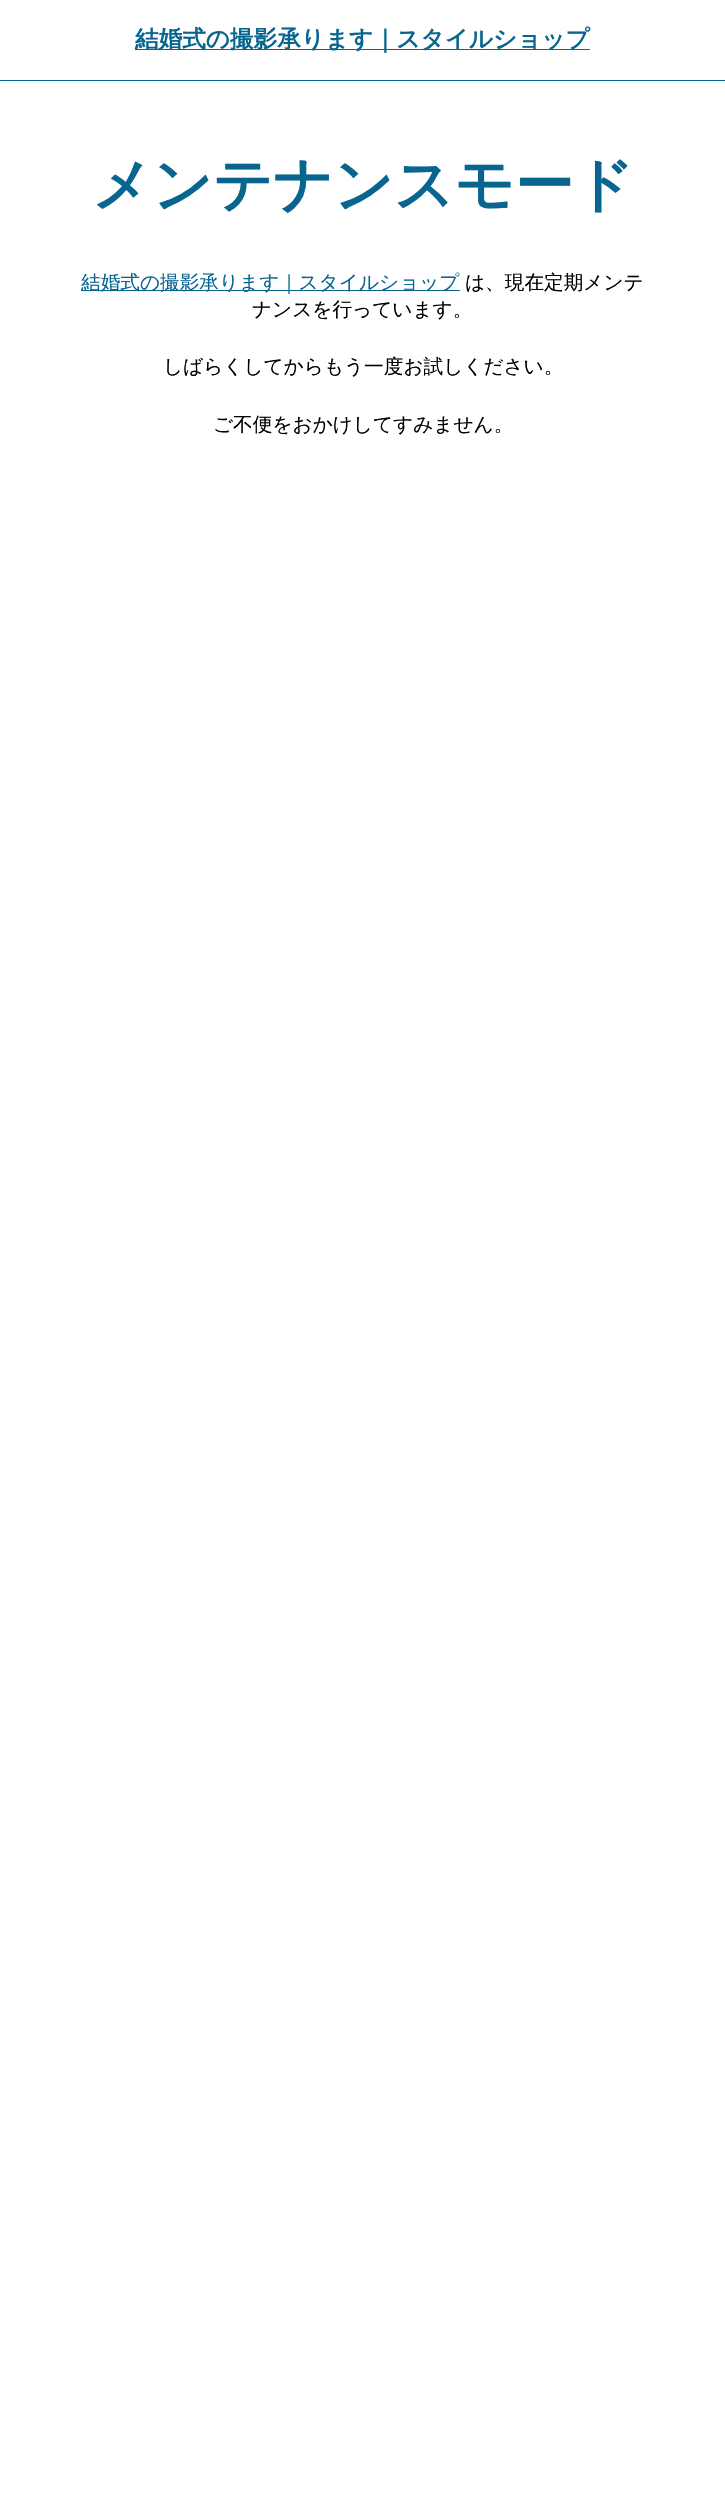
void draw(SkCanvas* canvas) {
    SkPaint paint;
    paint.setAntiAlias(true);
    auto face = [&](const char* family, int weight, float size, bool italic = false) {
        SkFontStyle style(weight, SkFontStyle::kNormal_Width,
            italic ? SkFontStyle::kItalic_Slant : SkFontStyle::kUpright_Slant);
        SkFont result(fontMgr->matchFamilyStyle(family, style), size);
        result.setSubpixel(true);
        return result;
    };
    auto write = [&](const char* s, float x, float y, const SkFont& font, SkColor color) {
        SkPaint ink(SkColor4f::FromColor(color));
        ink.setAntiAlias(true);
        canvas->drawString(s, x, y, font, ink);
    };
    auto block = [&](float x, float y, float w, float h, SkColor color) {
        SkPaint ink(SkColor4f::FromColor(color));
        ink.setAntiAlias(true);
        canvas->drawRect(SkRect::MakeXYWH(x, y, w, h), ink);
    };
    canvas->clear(SK_ColorWHITE);
    block(0, 80, 725, 1, SkColorSetRGB(8, 101, 143));
    block(135, 49, 455, 1, SkColorSetRGB(8, 101, 143));
    auto kFont1 = face("WenQuanYi Zen Hei", 700, 23.6f);
    write("結婚式の撮影承ります｜スタイルショップ", 135, 47, kFont1, SkColorSetRGB(8, 101, 143));
    auto kFont2 = face("WenQuanYi Zen Hei", 700, 59);
    write("メンテナンスモード", 92, 205, kFont2, SkColorSetRGB(8, 101, 143));
    block(81, 290, 379, 1, SkColorSetRGB(8, 101, 143));
    auto kFont3 = face("WenQuanYi Zen Hei", 500, 19.65f);
    write("結婚式の撮影承ります｜スタイルショップ", 81, 289, kFont3, SkColorSetRGB(8, 101, 143));
    write("は、現在定期メンテ", 465, 289, kFont3, SK_ColorBLACK);
    write("ナンスを行っています。", 252, 316, kFont3, SK_ColorBLACK);
    write("しばらくしてからもう一度お試しください。", 163, 373, kFont3, SK_ColorBLACK);
    write("ご不便をおかけしてすみません。", 213, 431, kFont3, SK_ColorBLACK);
}
